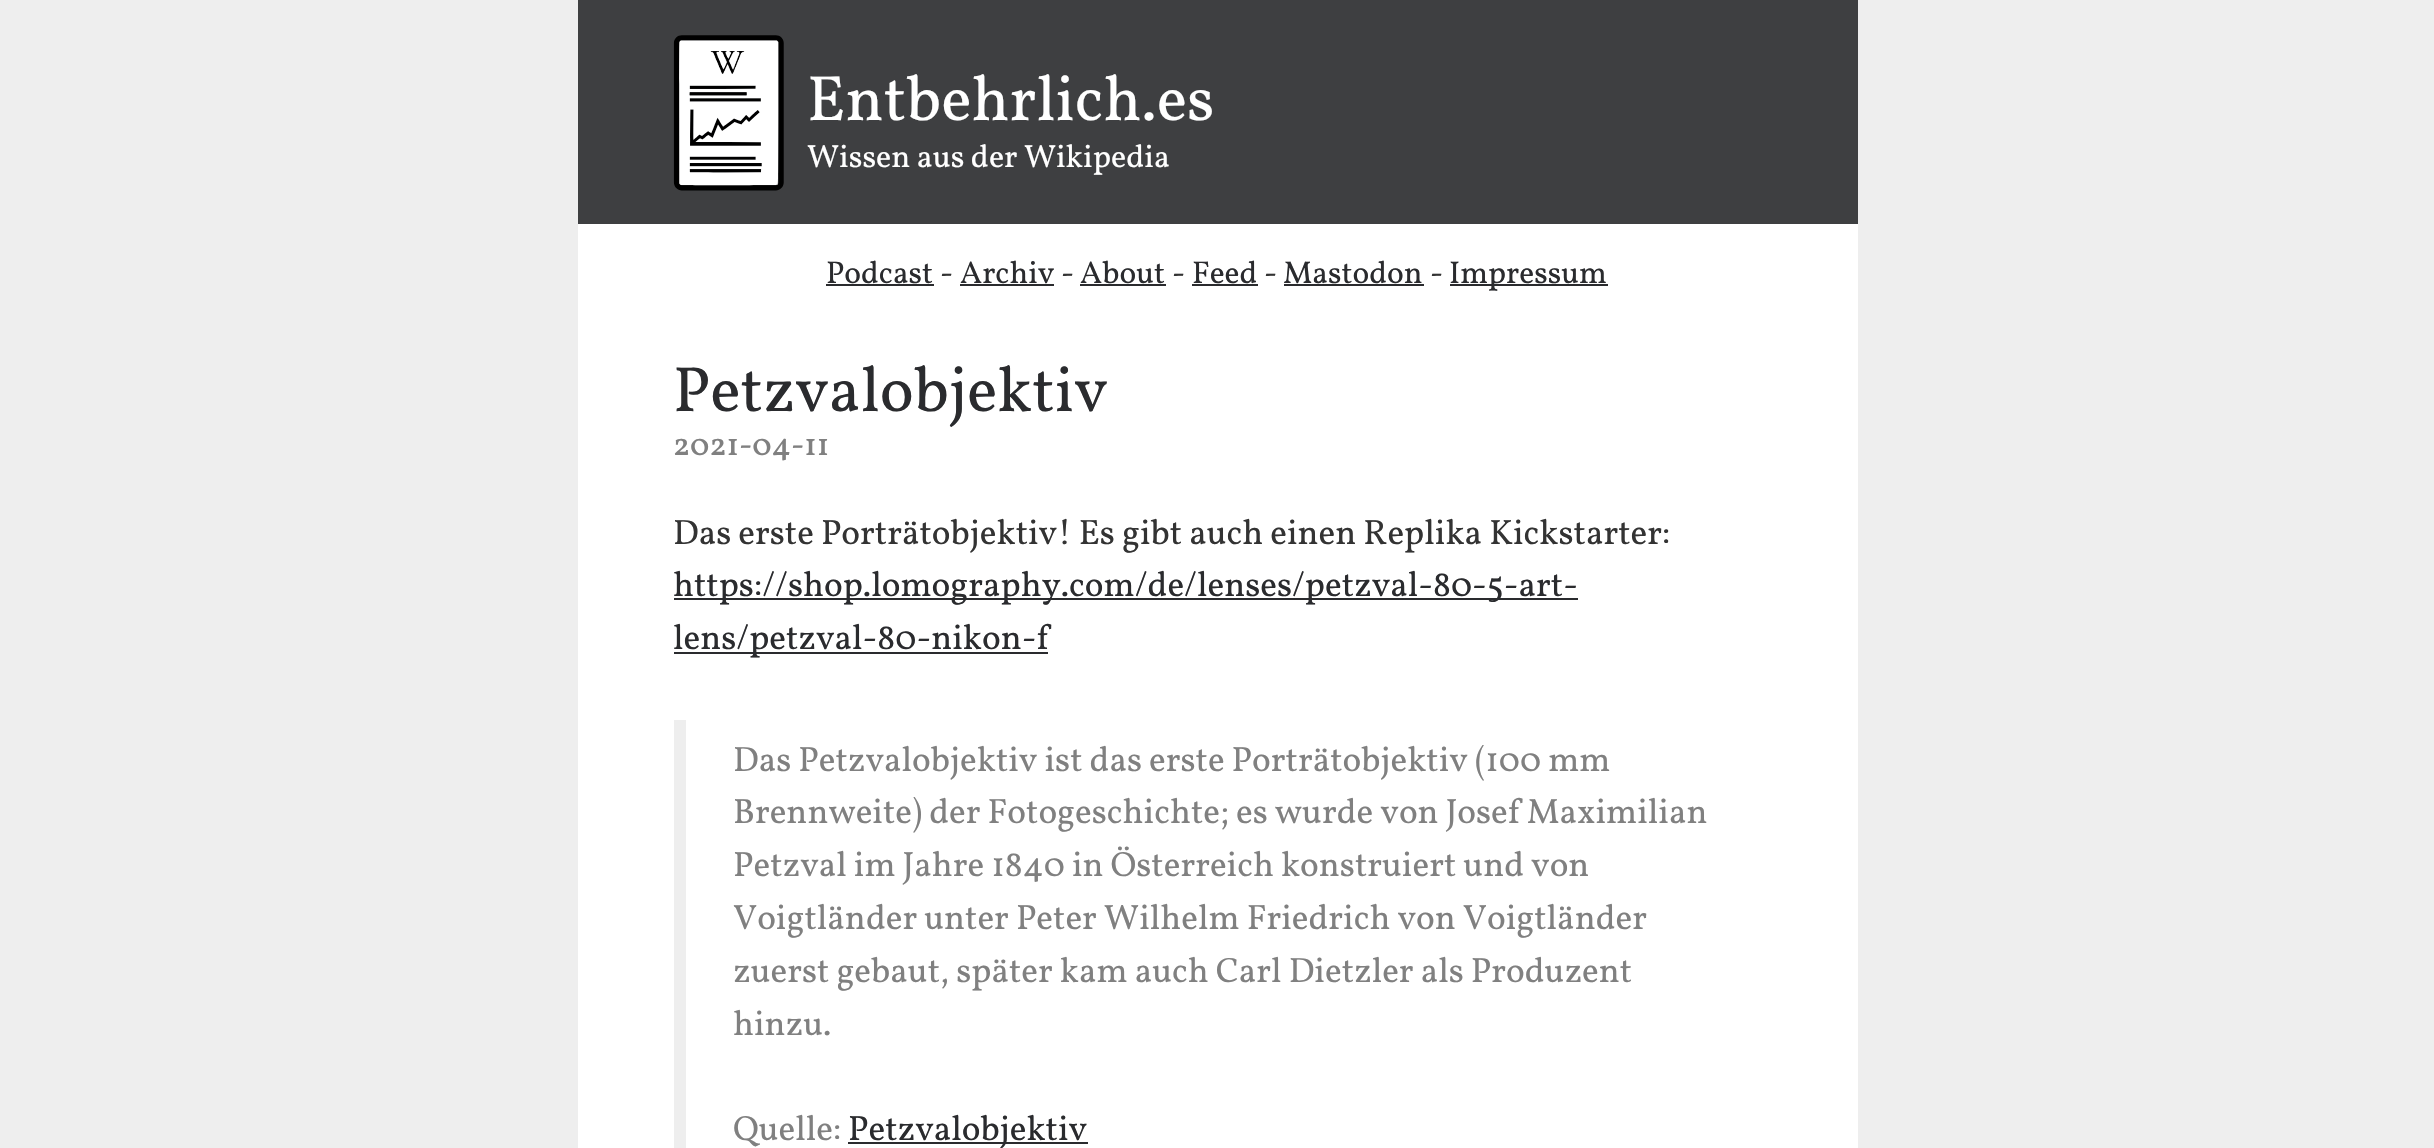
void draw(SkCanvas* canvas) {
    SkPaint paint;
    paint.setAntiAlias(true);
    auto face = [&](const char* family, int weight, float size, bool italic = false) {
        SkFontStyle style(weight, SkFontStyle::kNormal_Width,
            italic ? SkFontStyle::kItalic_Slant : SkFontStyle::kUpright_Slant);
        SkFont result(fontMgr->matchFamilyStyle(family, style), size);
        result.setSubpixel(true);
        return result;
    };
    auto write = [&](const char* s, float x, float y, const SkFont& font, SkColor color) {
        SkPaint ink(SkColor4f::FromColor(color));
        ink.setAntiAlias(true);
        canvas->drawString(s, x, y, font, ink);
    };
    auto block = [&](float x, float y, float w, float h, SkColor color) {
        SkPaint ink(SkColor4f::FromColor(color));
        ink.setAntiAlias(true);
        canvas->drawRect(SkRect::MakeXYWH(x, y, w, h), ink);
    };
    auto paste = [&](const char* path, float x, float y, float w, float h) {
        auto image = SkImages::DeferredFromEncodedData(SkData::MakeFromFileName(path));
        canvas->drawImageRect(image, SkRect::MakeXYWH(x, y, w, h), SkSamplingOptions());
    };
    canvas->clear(SkColorSetRGB(238, 238, 238));
    block(578, 224, 1280, 924, SK_ColorWHITE);
    block(578, 0, 1280, 224, SkColorSetRGB(62, 63, 65));
    paste("pic1.png", 673, 35, 111, 156);
    auto kFont1 = face("Vollkorn", 400, 64);
    write("Entbehrlich.es", 807, 120, kFont1, SK_ColorWHITE);
    auto kFont2 = face("Vollkorn", 400, 32);
    write("Wissen aus der Wikipedia", 807, 167, kFont2, SK_ColorWHITE);
    auto kFont3 = face("Vollkorn", 400, 31.5f);
    write("Podcast", 826, 283, kFont3, SkColorSetRGB(42, 43, 46));
    block(826, 284, 108, 2, SkColorSetRGB(42, 43, 46));
    write("-", 940, 283, kFont3, SkColorSetRGB(51, 51, 51));
    write("Archiv", 960, 283, kFont3, SkColorSetRGB(42, 43, 46));
    block(960, 284, 94, 2, SkColorSetRGB(42, 43, 46));
    write("-", 1061, 283, kFont3, SkColorSetRGB(51, 51, 51));
    write("About", 1080, 283, kFont3, SkColorSetRGB(42, 43, 46));
    block(1080, 284, 86, 2, SkColorSetRGB(42, 43, 46));
    write("-", 1172, 283, kFont3, SkColorSetRGB(51, 51, 51));
    write("Feed", 1192, 283, kFont3, SkColorSetRGB(42, 43, 46));
    block(1192, 284, 66, 2, SkColorSetRGB(42, 43, 46));
    write("-", 1264, 283, kFont3, SkColorSetRGB(51, 51, 51));
    write("Mastodon", 1283, 283, kFont3, SkColorSetRGB(42, 43, 46));
    block(1284, 284, 140, 2, SkColorSetRGB(42, 43, 46));
    write("-", 1430, 283, kFont3, SkColorSetRGB(51, 51, 51));
    block(1450, 284, 158, 2, SkColorSetRGB(42, 43, 46));
    write("Impressum", 1449, 283, kFont3, SkColorSetRGB(42, 43, 46));
    write("Petzvalobjektiv", 673, 411, kFont1, SkColorSetRGB(42, 43, 46));
    auto kFont4 = face("Vollkorn", 500, 32);
    write("2021-04-11", 673, 455, kFont4, SkColorSetRGB(128, 128, 128));
    auto kFont5 = face("Vollkorn", 400, 35.2f);
    write("Das erste Porträtobjektiv! Es gibt auch einen Replika Kickstarter:", 673, 544, kFont5, SkColorSetRGB(51, 51, 51));
    block(674, 598, 904, 2, SkColorSetRGB(42, 43, 46));
    write("https://shop.lomography.com/de/lenses/petzval-80-5-art-", 673, 596, kFont5, SkColorSetRGB(42, 43, 46));
    block(674, 652, 374, 2, SkColorSetRGB(42, 43, 46));
    write("lens/petzval-80-nikon-f", 673, 649, kFont5, SkColorSetRGB(42, 43, 46));
    block(674, 720, 12, 428, SkColorSetRGB(238, 238, 238));
    write("Das Petzvalobjektiv ist das erste Porträtobjektiv (100 mm", 733, 771, kFont5, SkColorSetRGB(128, 128, 128));
    write("Brennweite) der Fotogeschichte; es wurde von Josef Maximilian", 733, 823, kFont5, SkColorSetRGB(128, 128, 128));
    write("Petzval im Jahre 1840 in Österreich konstruiert und von", 733, 876, kFont5, SkColorSetRGB(128, 128, 128));
    write("Voigtländer unter Peter Wilhelm Friedrich von Voigtländer", 733, 929, kFont5, SkColorSetRGB(128, 128, 128));
    write("zuerst gebaut, später kam auch Carl Dietzler als Produzent", 733, 982, kFont5, SkColorSetRGB(128, 128, 128));
    write("hinzu.", 733, 1035, kFont5, SkColorSetRGB(128, 128, 128));
    write("Quelle:", 733, 1140, kFont5, SkColorSetRGB(128, 128, 128));
    block(848, 1142, 240, 2, SkColorSetRGB(42, 43, 46));
    write("Petzvalobjektiv", 848, 1140, kFont5, SkColorSetRGB(42, 43, 46));
}
